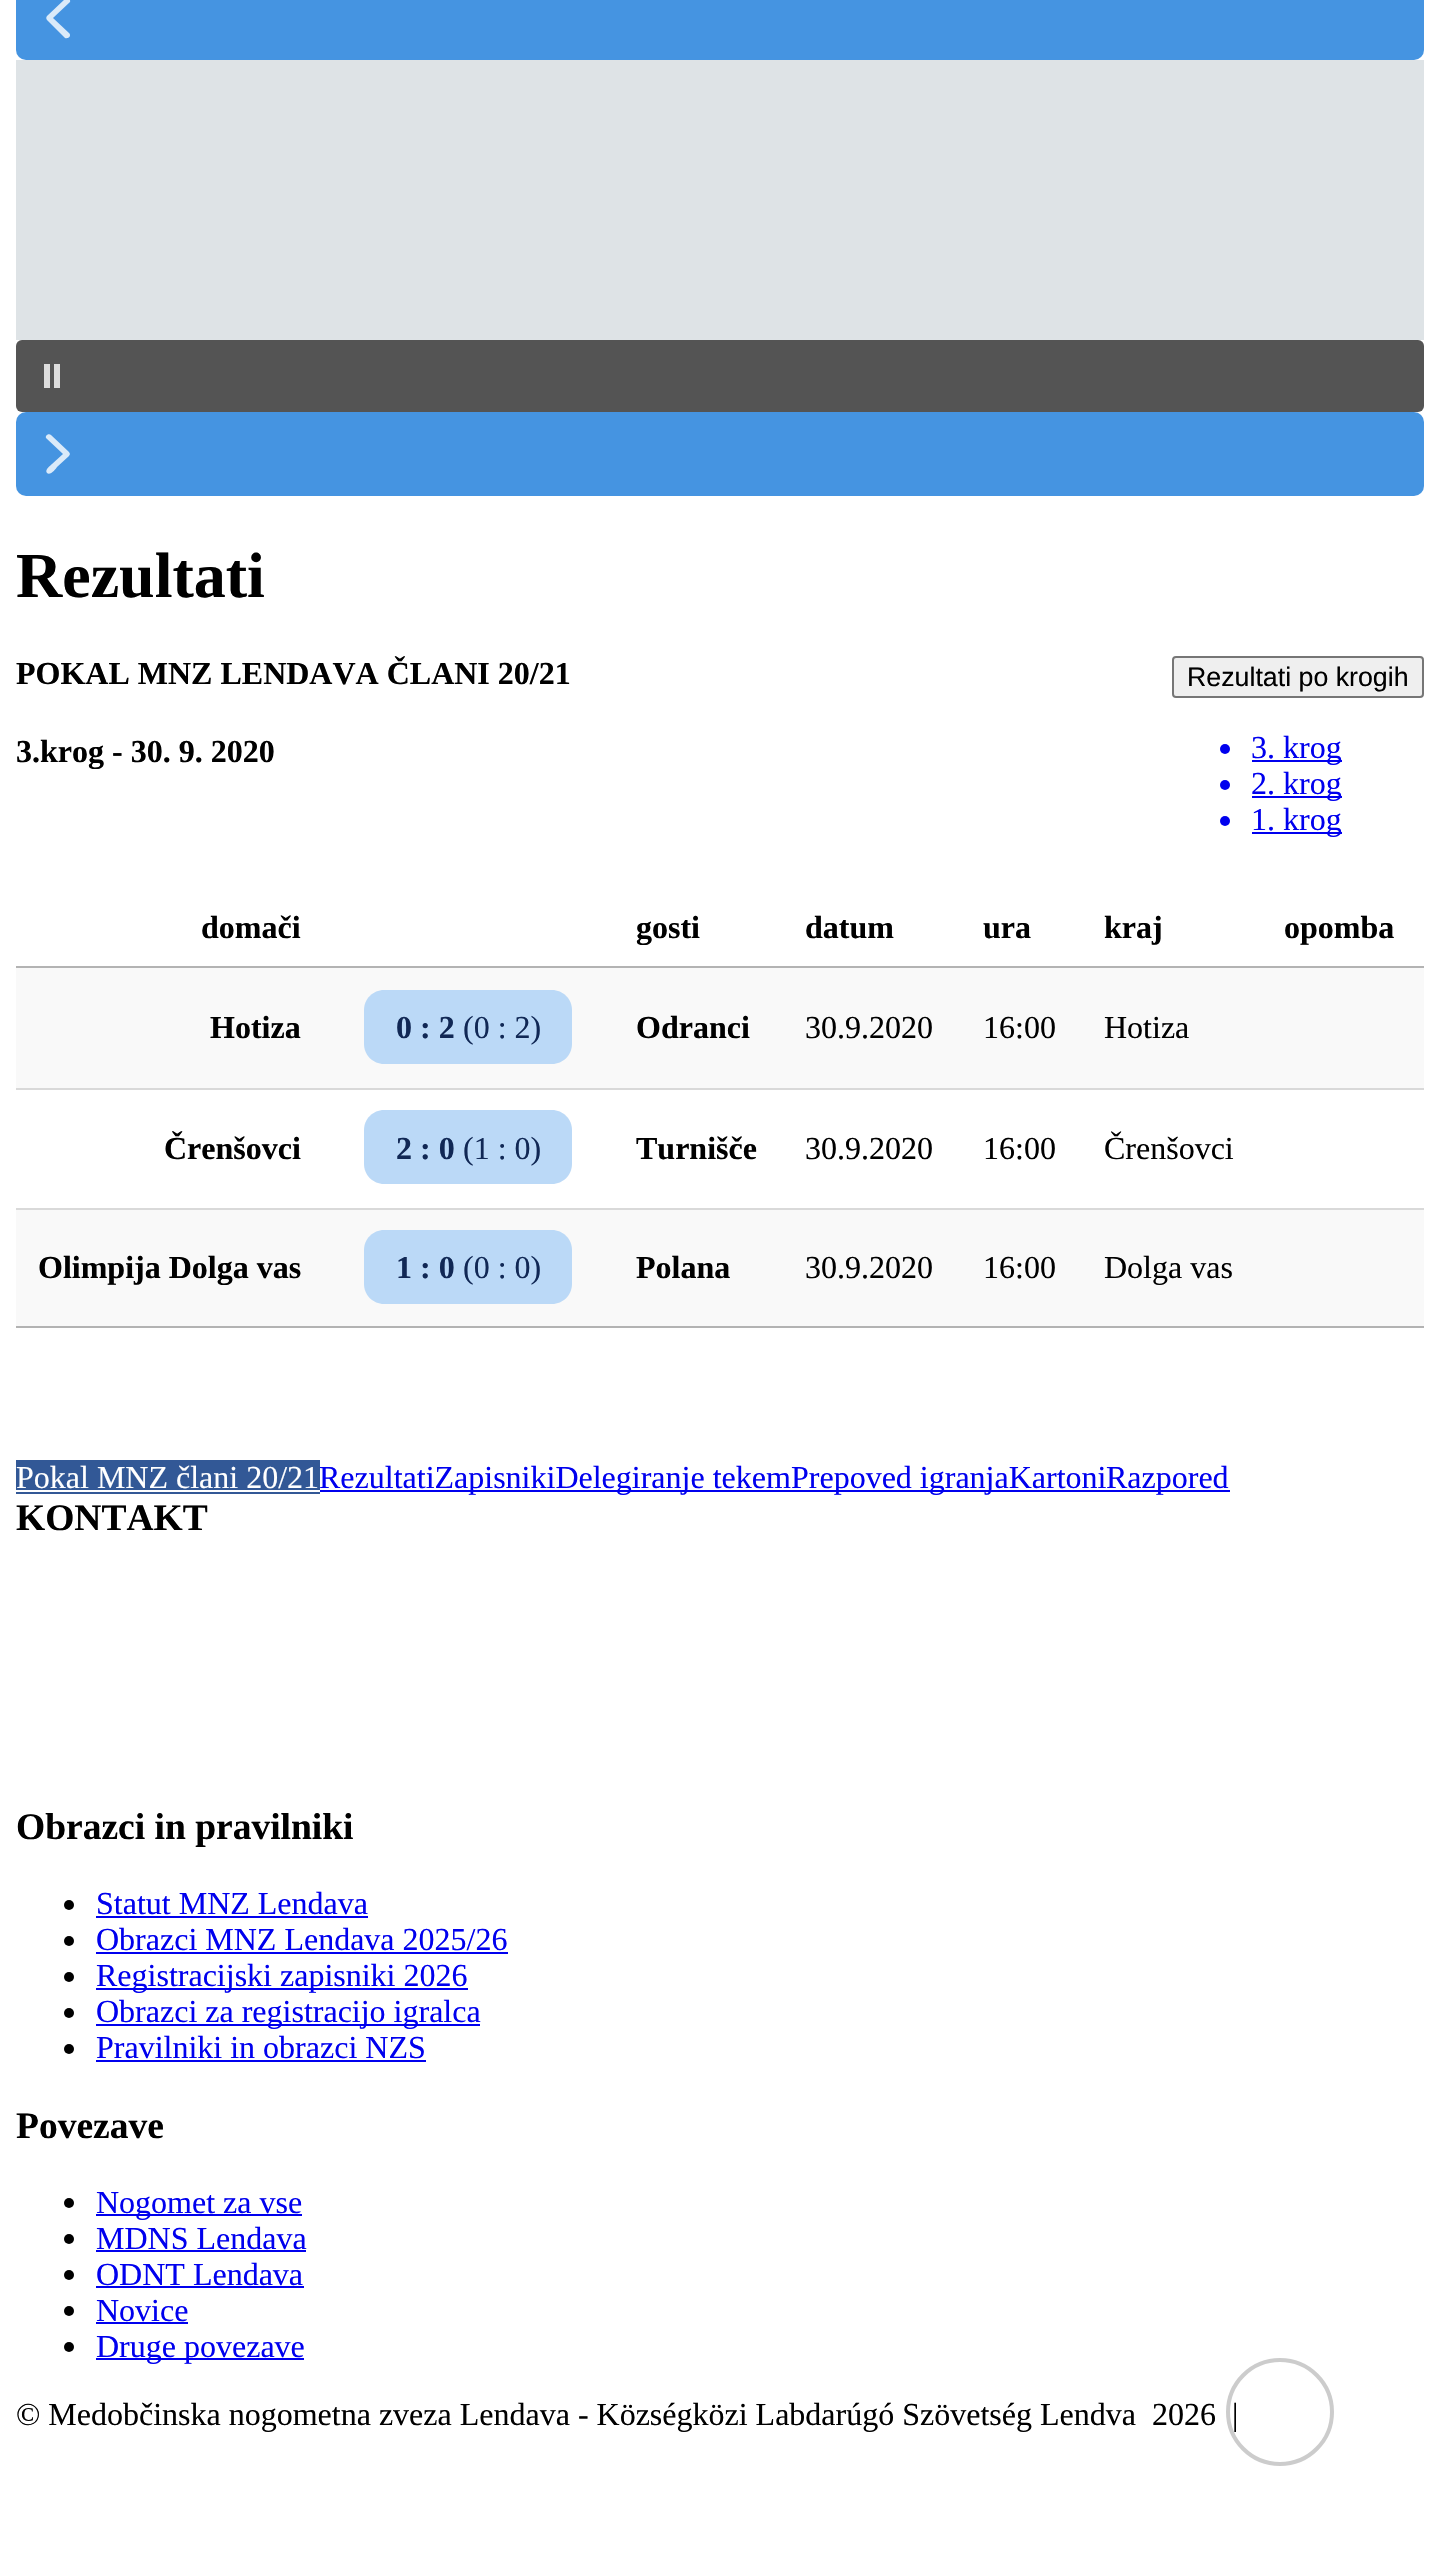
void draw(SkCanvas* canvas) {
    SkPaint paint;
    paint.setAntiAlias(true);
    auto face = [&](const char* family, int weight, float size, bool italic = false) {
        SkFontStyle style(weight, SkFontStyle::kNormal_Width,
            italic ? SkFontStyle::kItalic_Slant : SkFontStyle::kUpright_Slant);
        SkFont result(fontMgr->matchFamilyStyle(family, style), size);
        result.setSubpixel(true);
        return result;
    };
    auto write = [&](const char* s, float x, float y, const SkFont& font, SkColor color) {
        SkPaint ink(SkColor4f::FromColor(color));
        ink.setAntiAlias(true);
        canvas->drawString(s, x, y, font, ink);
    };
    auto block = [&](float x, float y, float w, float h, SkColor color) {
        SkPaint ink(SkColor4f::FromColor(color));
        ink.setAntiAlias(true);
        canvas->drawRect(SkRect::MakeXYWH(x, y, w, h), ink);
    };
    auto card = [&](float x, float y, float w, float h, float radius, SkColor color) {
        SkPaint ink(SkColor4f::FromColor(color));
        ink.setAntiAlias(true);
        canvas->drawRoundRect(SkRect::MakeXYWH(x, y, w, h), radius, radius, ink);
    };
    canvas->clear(SK_ColorWHITE);
    card(16, -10, 1408, 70, 10, SkColorSetRGB(69, 148, 225));
    paint.setColor(SkColorSetRGB(218, 234, 249));
    canvas->drawPath(SkPathBuilder(SkPathFillType::kEvenOdd).moveTo(69, 33).lineTo(53, 18).lineTo(70, 2).cubicTo(71, -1, 67, -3, 65, -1).lineTo(47, 16).cubicTo(46, 17, 46, 19, 47, 20).lineTo(65, 38).cubicTo(68, 39, 72, 36, 69, 33).close().detach(), paint);
    block(16, 60, 1408, 280, SkColorSetRGB(222, 227, 230));
    card(16, 340, 1408, 72, 6, SkColorSetRGB(84, 84, 84));
    paint.setColor(SkColorSetRGB(221, 221, 221));
    canvas->drawPath(SkPathBuilder(SkPathFillType::kEvenOdd).moveTo(44, 364).lineTo(44, 388).lineTo(50, 388).lineTo(50, 364).close().moveTo(54, 364).lineTo(54, 388).lineTo(60, 388).lineTo(60, 364).close().detach(), paint);
    card(16, 412, 1408, 84, 10, SkColorSetRGB(69, 148, 225));
    paint.setColor(SkColorSetRGB(218, 234, 249));
    canvas->drawPath(SkPathBuilder(SkPathFillType::kEvenOdd).moveTo(70, 454).lineTo(69, 452).lineTo(51, 435).cubicTo(49, 433, 45, 435, 46, 438).lineTo(63, 454).lineTo(52, 464).cubicTo(51, 465, 44, 470, 47, 473).cubicTo(50, 476, 56, 469, 57, 467).lineTo(69, 456).close().detach(), paint);
    auto kFont1 = face("Liberation Serif", 700, 64);
    write("Rezultati", 16, 597, kFont1, SK_ColorBLACK);
    paint.setColor(SkColorSetRGB(239, 239, 239));
    canvas->drawRoundRect(SkRect::MakeXYWH(1173, 657, 250, 40), 3, 3, paint);
    paint.setStyle(SkPaint::kStroke_Style);
    paint.setStrokeWidth(2);
    paint.setColor(SkColorSetRGB(118, 118, 118));
    canvas->drawRoundRect(SkRect::MakeXYWH(1173, 657, 250, 40), 3, 3, paint);
    auto kFont2 = face("Liberation Sans", 400, 26.75f);
    write("Rezultati po krogih", 1187, 686, kFont2, SK_ColorBLACK);
    paint.setStyle(SkPaint::kFill_Style);
    paint.setColor(SkColorSetRGB(0, 0, 238));
    canvas->drawCircle(1225, 749, 5, paint);
    block(1252, 760, 90, 2, SkColorSetRGB(0, 0, 238));
    auto kFont3 = face("Liberation Serif", 400, 32);
    write("3. krog", 1251, 758, kFont3, SkColorSetRGB(0, 0, 238));
    canvas->drawCircle(1225, 785, 5, paint);
    block(1252, 796, 90, 2, SkColorSetRGB(0, 0, 238));
    write("2. krog", 1251, 794, kFont3, SkColorSetRGB(0, 0, 238));
    canvas->drawCircle(1225, 821, 5, paint);
    block(1252, 832, 90, 2, SkColorSetRGB(0, 0, 238));
    write("1. krog", 1251, 830, kFont3, SkColorSetRGB(0, 0, 238));
    auto kFont4 = face("Liberation Serif", 700, 32);
    write("POKAL MNZ LENDAVA ČLANI 20/21", 16, 684, kFont4, SK_ColorBLACK);
    write("3.krog - 30. 9. 2020", 16, 762, kFont4, SK_ColorBLACK);
    block(16, 966, 1408, 2, SkColorSetRGB(179, 179, 179));
    write("domači", 201, 938, kFont4, SK_ColorBLACK);
    write("gosti", 636, 938, kFont4, SK_ColorBLACK);
    write("datum", 805, 938, kFont4, SK_ColorBLACK);
    write("ura", 983, 938, kFont4, SK_ColorBLACK);
    write("kraj", 1104, 938, kFont4, SK_ColorBLACK);
    write("opomba", 1284, 938, kFont4, SK_ColorBLACK);
    block(16, 968, 1408, 120, SkColorSetRGB(249, 249, 249));
    write("Hotiza", 210, 1038, kFont4, SK_ColorBLACK);
    paint.setColor(SkColorSetRGB(187, 217, 247));
    canvas->drawPath(SkPathBuilder().moveTo(384, 990).lineTo(454, 990).lineTo(454, 1064).lineTo(384, 1064).cubicTo(373, 1064, 364, 1055, 364, 1044).lineTo(364, 1010).cubicTo(364, 999, 373, 990, 384, 990).close().detach(), paint);
    write("0 : 2", 396, 1038, kFont4, SkColorSetRGB(17, 40, 85));
    canvas->drawPath(SkPathBuilder().moveTo(454, 990).lineTo(552, 990).cubicTo(563, 990, 572, 999, 572, 1010).lineTo(572, 1044).cubicTo(572, 1055, 563, 1064, 552, 1064).lineTo(454, 1064).close().detach(), paint);
    write("(0 : 2)", 463, 1038, kFont3, SkColorSetRGB(17, 40, 85));
    write("Odranci", 636, 1038, kFont4, SK_ColorBLACK);
    write("30.9.2020", 805, 1038, kFont3, SK_ColorBLACK);
    write("16:00", 983, 1038, kFont3, SK_ColorBLACK);
    write("Hotiza", 1104, 1038, kFont3, SK_ColorBLACK);
    block(16, 1088, 1408, 2, SkColorSetRGB(217, 217, 217));
    write("Črenšovci", 164, 1159, kFont4, SK_ColorBLACK);
    canvas->drawPath(SkPathBuilder().moveTo(384, 1110).lineTo(454, 1110).lineTo(454, 1184).lineTo(384, 1184).cubicTo(373, 1184, 364, 1175, 364, 1164).lineTo(364, 1130).cubicTo(364, 1119, 373, 1110, 384, 1110).close().detach(), paint);
    write("2 : 0", 396, 1159, kFont4, SkColorSetRGB(17, 40, 85));
    canvas->drawPath(SkPathBuilder().moveTo(454, 1110).lineTo(552, 1110).cubicTo(563, 1110, 572, 1119, 572, 1130).lineTo(572, 1164).cubicTo(572, 1175, 563, 1184, 552, 1184).lineTo(454, 1184).close().detach(), paint);
    write("(1 : 0)", 463, 1159, kFont3, SkColorSetRGB(17, 40, 85));
    write("Turnišče", 636, 1159, kFont4, SK_ColorBLACK);
    write("30.9.2020", 805, 1159, kFont3, SK_ColorBLACK);
    write("16:00", 983, 1159, kFont3, SK_ColorBLACK);
    write("Črenšovci", 1104, 1159, kFont3, SK_ColorBLACK);
    block(16, 1210, 1408, 116, SkColorSetRGB(249, 249, 249));
    block(16, 1208, 1408, 2, SkColorSetRGB(217, 217, 217));
    block(16, 1326, 1408, 2, SkColorSetRGB(179, 179, 179));
    write("Olimpija Dolga vas", 38, 1278, kFont4, SK_ColorBLACK);
    canvas->drawPath(SkPathBuilder().moveTo(384, 1230).lineTo(454, 1230).lineTo(454, 1304).lineTo(384, 1304).cubicTo(373, 1304, 364, 1295, 364, 1284).lineTo(364, 1250).cubicTo(364, 1239, 373, 1230, 384, 1230).close().detach(), paint);
    write("1 : 0", 396, 1278, kFont4, SkColorSetRGB(17, 40, 85));
    canvas->drawPath(SkPathBuilder().moveTo(454, 1230).lineTo(552, 1230).cubicTo(563, 1230, 572, 1239, 572, 1250).lineTo(572, 1284).cubicTo(572, 1295, 563, 1304, 552, 1304).lineTo(454, 1304).close().detach(), paint);
    write("(0 : 0)", 463, 1278, kFont3, SkColorSetRGB(17, 40, 85));
    write("Polana", 636, 1278, kFont4, SK_ColorBLACK);
    write("30.9.2020", 805, 1278, kFont3, SK_ColorBLACK);
    write("16:00", 983, 1278, kFont3, SK_ColorBLACK);
    write("Dolga vas", 1104, 1278, kFont3, SK_ColorBLACK);
    block(16, 1460, 304, 34, SkColorSetRGB(50, 88, 150));
    write("Pokal MNZ člani 20/21", 16, 1488, kFont3, SK_ColorWHITE);
    block(16, 1490, 304, 2, SK_ColorWHITE);
    block(320, 1490, 470, 2, SkColorSetRGB(0, 0, 238));
    write("RezultatiZapisnikiDelegiranje tekem", 319, 1488, kFont3, SkColorSetRGB(0, 0, 238));
    block(790, 1490, 218, 2, SkColorSetRGB(0, 0, 238));
    write("Prepoved igranjaKartoni", 791, 1488, kFont3, SkColorSetRGB(0, 0, 238));
    block(1008, 1490, 222, 2, SkColorSetRGB(0, 0, 238));
    write("Razpored", 1106, 1488, kFont3, SkColorSetRGB(0, 0, 238));
    auto kFont5 = face("Liberation Serif", 700, 37.5f);
    write("KONTAKT", 16, 1530, kFont5, SK_ColorBLACK);
    write("Obrazci in pravilniki", 16, 1839, kFont5, SK_ColorBLACK);
    paint.setColor(SK_ColorBLACK);
    canvas->drawCircle(69, 1905, 5, paint);
    write("Statut MNZ Lendava", 96, 1914, kFont3, SkColorSetRGB(0, 0, 238));
    block(96, 1916, 272, 2, SkColorSetRGB(0, 0, 238));
    canvas->drawCircle(69, 1941, 5, paint);
    write("Obrazci MNZ Lendava 2025/26", 96, 1950, kFont3, SkColorSetRGB(0, 0, 238));
    block(96, 1952, 412, 2, SkColorSetRGB(0, 0, 238));
    canvas->drawCircle(69, 1977, 5, paint);
    block(96, 1988, 372, 2, SkColorSetRGB(0, 0, 238));
    write("Registracijski zapisniki 2026", 96, 1986, kFont3, SkColorSetRGB(0, 0, 238));
    canvas->drawCircle(69, 2013, 5, paint);
    block(96, 2024, 384, 2, SkColorSetRGB(0, 0, 238));
    write("Obrazci za registracijo igralca", 96, 2022, kFont3, SkColorSetRGB(0, 0, 238));
    canvas->drawCircle(69, 2049, 5, paint);
    write("Pravilniki in obrazci NZS", 96, 2058, kFont3, SkColorSetRGB(0, 0, 238));
    block(96, 2060, 330, 2, SkColorSetRGB(0, 0, 238));
    write("Povezave", 16, 2138, kFont5, SK_ColorBLACK);
    canvas->drawCircle(69, 2203, 5, paint);
    block(96, 2214, 206, 2, SkColorSetRGB(0, 0, 238));
    write("Nogomet za vse", 96, 2213, kFont3, SkColorSetRGB(0, 0, 238));
    canvas->drawCircle(69, 2239, 5, paint);
    write("MDNS Lendava", 96, 2249, kFont3, SkColorSetRGB(0, 0, 238));
    block(96, 2250, 210, 2, SkColorSetRGB(0, 0, 238));
    canvas->drawCircle(69, 2275, 5, paint);
    write("ODNT Lendava", 96, 2285, kFont3, SkColorSetRGB(0, 0, 238));
    block(96, 2286, 208, 2, SkColorSetRGB(0, 0, 238));
    canvas->drawCircle(69, 2311, 5, paint);
    write("Novice", 96, 2321, kFont3, SkColorSetRGB(0, 0, 238));
    block(96, 2322, 92, 2, SkColorSetRGB(0, 0, 238));
    canvas->drawCircle(69, 2347, 5, paint);
    block(96, 2358, 208, 2, SkColorSetRGB(0, 0, 238));
    write("Druge povezave", 96, 2357, kFont3, SkColorSetRGB(0, 0, 238));
    write("© Medobčinska nogometna zveza Lendava - Községközi Labdarúgó Szövetség Lendva", 16, 2425, kFont3, SK_ColorBLACK);
    write("2026", 1152, 2425, kFont3, SK_ColorBLACK);
    write("|", 1232, 2425, kFont3, SK_ColorBLACK);
    paint.setStyle(SkPaint::kStroke_Style);
    paint.setStrokeWidth(4);
    paint.setColor(SkColorSetRGB(204, 204, 204));
    canvas->drawCircle(1280, 2412, 52, paint);
}
